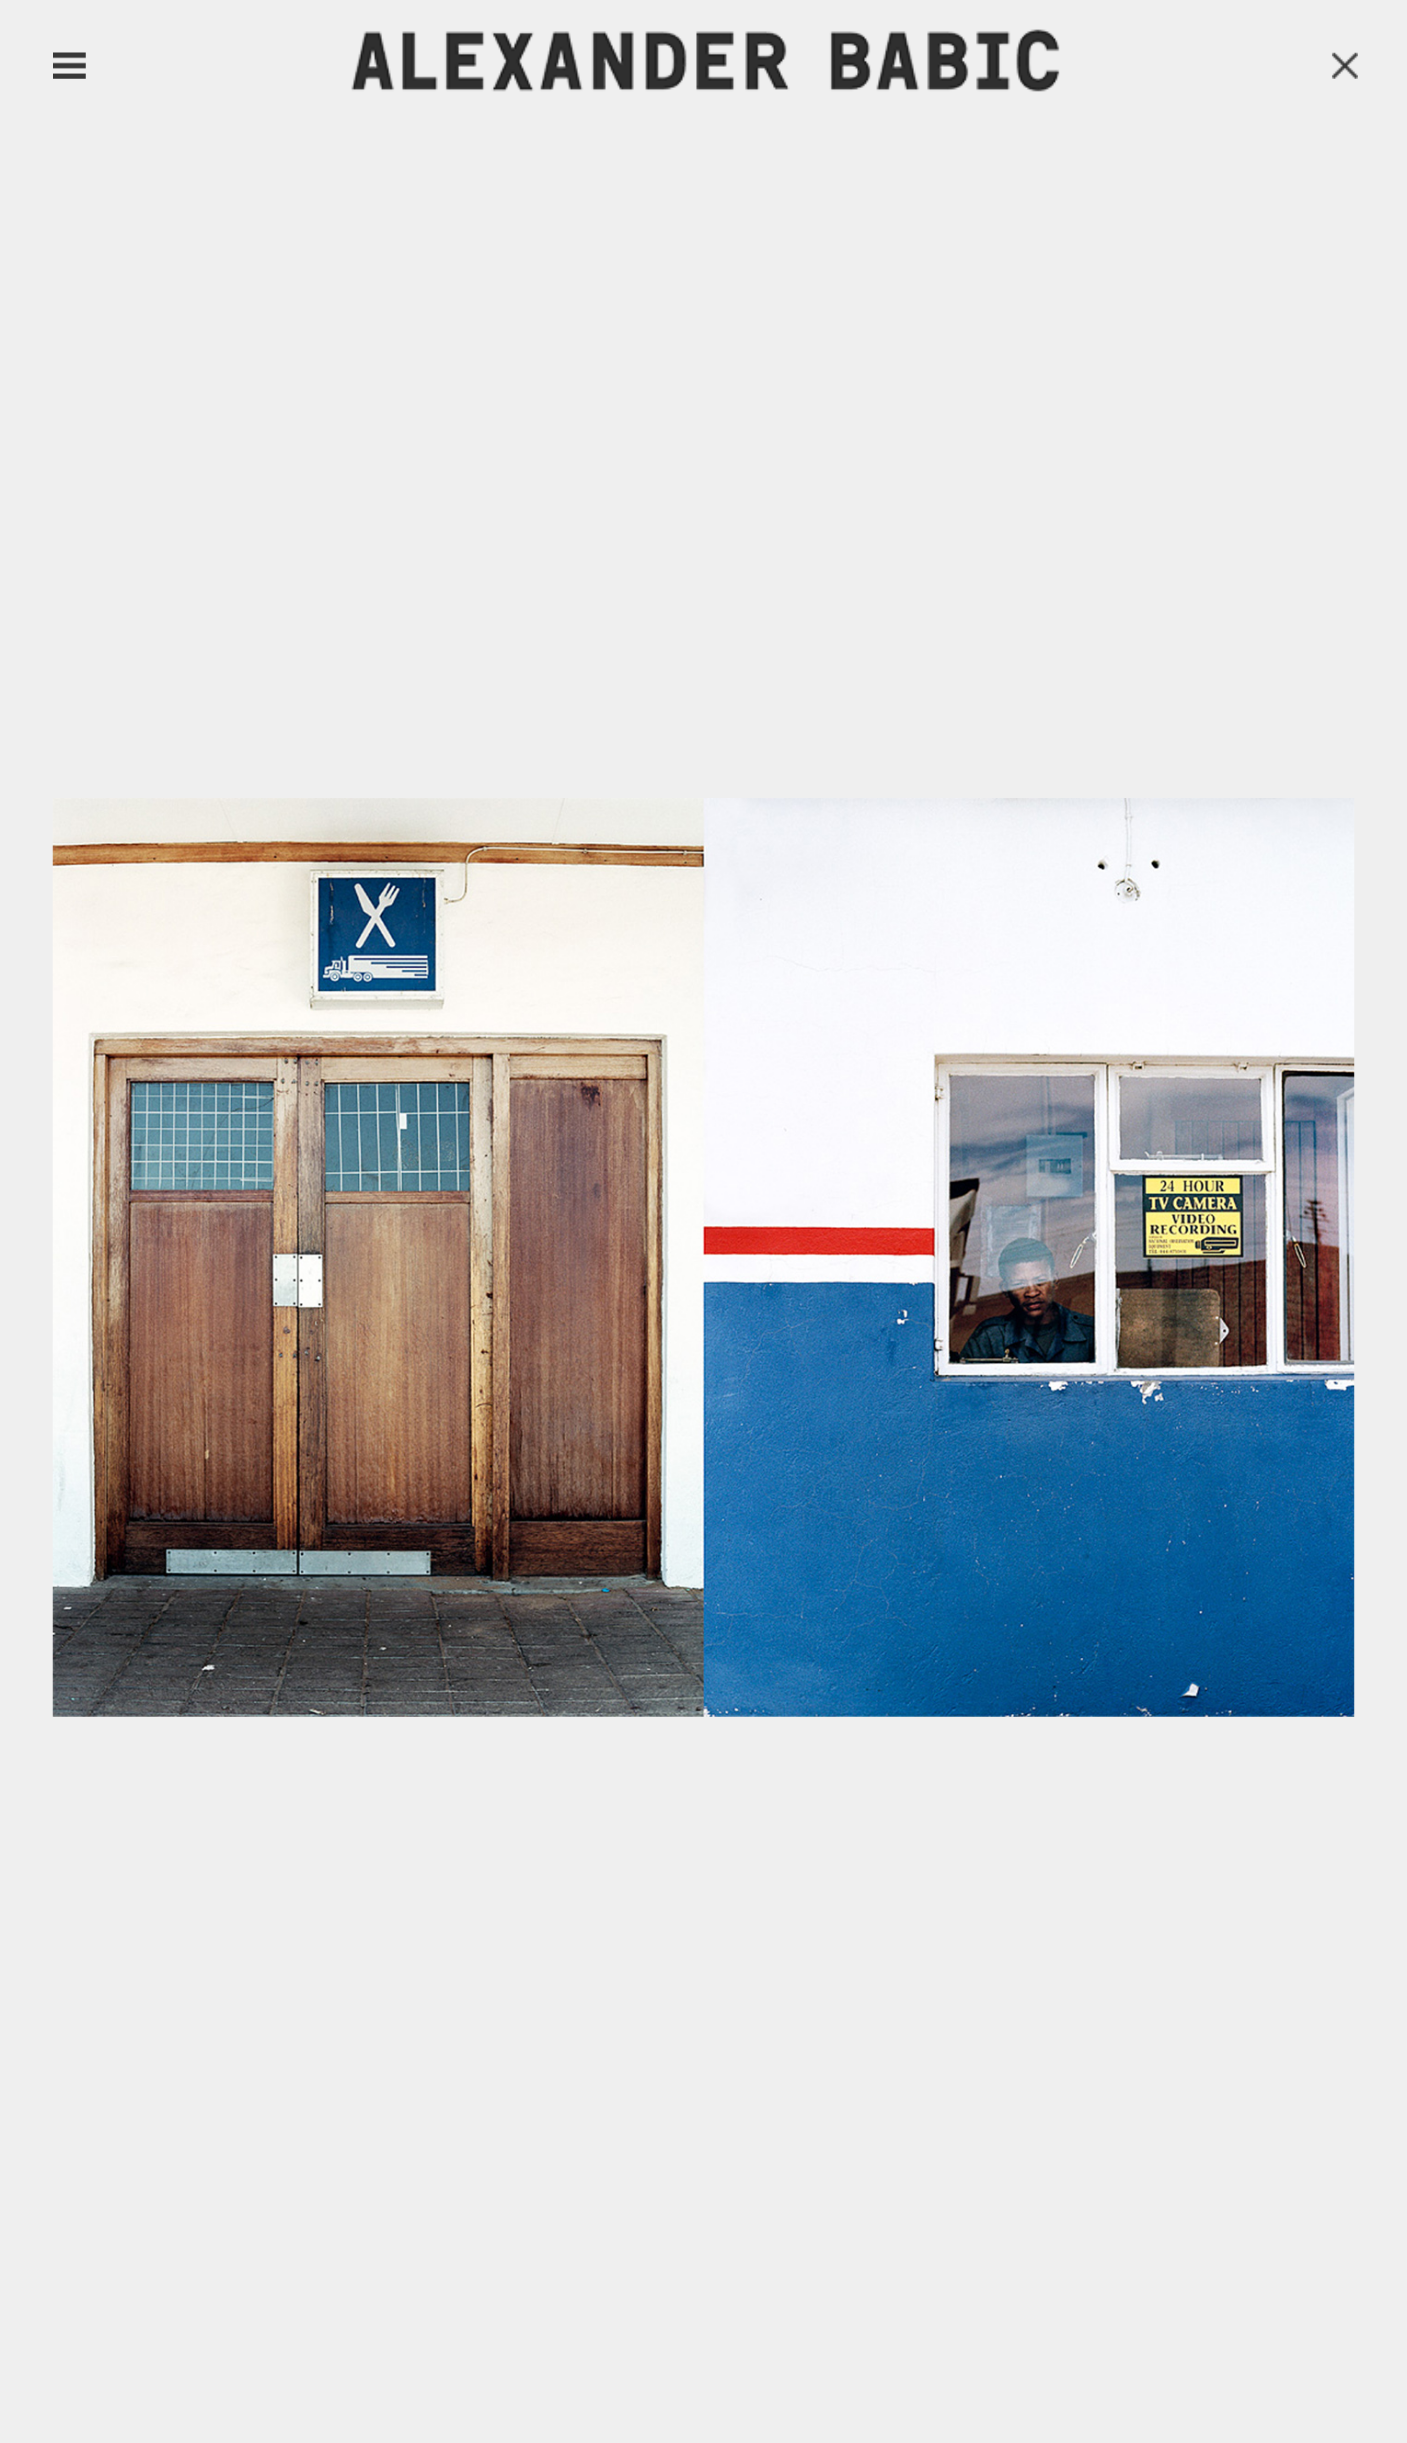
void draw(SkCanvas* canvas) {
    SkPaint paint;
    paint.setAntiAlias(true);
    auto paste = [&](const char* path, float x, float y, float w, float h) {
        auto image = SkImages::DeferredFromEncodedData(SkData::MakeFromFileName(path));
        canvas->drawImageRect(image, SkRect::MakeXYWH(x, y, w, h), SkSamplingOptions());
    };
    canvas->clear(SkColorSetRGB(239, 239, 239));
    paste("pic1.png", 53, 52, 33, 27);
    paste("pic2.png", 351, 29, 709, 63);
    paste("pic3.png", 52, 798, 1303, 919);
    paste("pic4.png", 1331, 52, 27, 27);
}
